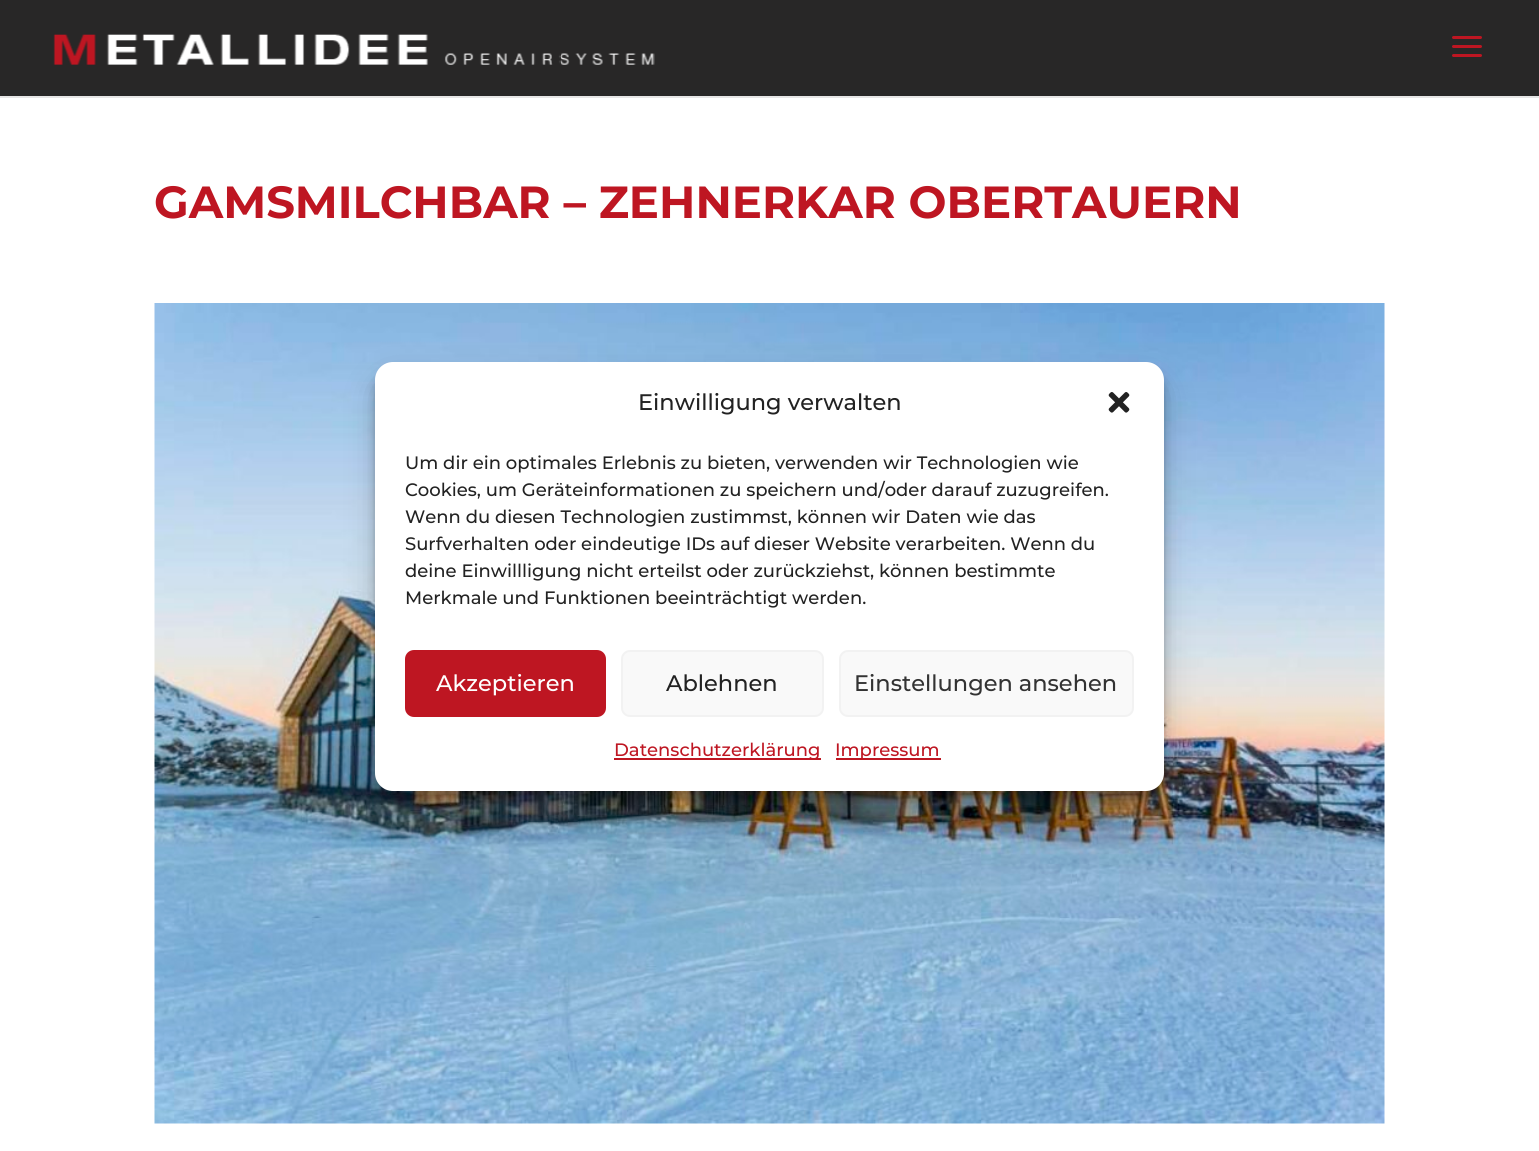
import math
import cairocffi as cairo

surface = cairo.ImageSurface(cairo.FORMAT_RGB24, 1539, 1151)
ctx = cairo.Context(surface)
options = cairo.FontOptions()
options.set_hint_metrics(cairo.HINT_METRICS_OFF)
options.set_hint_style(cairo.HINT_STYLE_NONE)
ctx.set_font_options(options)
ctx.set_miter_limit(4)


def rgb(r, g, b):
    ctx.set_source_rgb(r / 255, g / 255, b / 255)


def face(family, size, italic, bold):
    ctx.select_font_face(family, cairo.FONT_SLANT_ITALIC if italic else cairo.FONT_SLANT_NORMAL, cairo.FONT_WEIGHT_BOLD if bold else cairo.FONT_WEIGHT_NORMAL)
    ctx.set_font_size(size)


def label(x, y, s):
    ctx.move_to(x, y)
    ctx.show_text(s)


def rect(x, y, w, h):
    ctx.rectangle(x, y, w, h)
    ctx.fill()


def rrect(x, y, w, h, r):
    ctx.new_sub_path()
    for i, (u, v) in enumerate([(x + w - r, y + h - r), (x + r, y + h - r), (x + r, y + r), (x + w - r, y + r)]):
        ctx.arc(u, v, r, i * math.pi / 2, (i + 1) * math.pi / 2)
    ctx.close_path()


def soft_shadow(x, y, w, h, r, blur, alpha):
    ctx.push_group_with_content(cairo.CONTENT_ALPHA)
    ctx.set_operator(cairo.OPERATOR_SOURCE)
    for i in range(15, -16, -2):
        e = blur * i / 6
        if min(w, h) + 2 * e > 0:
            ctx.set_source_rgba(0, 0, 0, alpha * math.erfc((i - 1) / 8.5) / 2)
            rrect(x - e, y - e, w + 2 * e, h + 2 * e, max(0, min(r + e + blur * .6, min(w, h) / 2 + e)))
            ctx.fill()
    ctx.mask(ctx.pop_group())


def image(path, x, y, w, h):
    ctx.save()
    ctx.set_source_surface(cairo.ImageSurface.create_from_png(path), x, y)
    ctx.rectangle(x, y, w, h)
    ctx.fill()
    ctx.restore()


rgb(255, 255, 255)
ctx.paint()
rgb(230, 230, 230)
rect(0, 96, 1539, 2)
rgb(40, 39, 39)
rect(0, 0, 1539, 96)
image('image0.png', 53, 34, 602, 31)
image('image1.png', 1452, 36, 30, 21)
face('Montserrat', 45, 0, 1)
rgb(190, 22, 34)
label(154, 218, 'GAMSMILCHBAR – ZEHNERKAR OBERTAUERN')
image('image2.png', 154, 303, 1231, 821)
rgb(0, 0, 0)
soft_shadow(375, 371, 789, 429, 18, 4.5, 0.23)
soft_shadow(375, 377, 789, 429, 18, 15, 0.19)
rgb(255, 255, 255)
rrect(375, 362, 789, 429, 18)
ctx.fill()
face('Montserrat Medium', 22.5, 0, 0)
rgb(34, 34, 34)
label(638, 410, 'Einwilligung verwalten')
image('image3.png', 1108, 392, 22, 21)
face('Montserrat Medium', 18, 0, 0)
label(405, 469, 'Um dir ein optimales Erlebnis zu bieten, verwenden wir Technologien wie')
label(405, 496, 'Cookies, um Geräteinformationen zu speichern und/oder darauf zuzugreifen.')
label(405, 523, 'Wenn du diesen Technologien zustimmst, können wir Daten wie das')
label(405, 550, 'Surfverhalten oder eindeutige IDs auf dieser Website verarbeiten. Wenn du')
label(405, 577, 'deine Einwillligung nicht erteilst oder zurückziehst, können bestimmte')
label(405, 604, 'Merkmale und Funktionen beeinträchtigt werden.')
rgb(190, 22, 34)
rrect(406, 651, 199, 65, 8)
ctx.fill_preserve()
ctx.stroke()
face('Montserrat Medium', 22.5, 0, 0)
rgb(255, 255, 255)
label(436, 691, 'Akzeptieren')
rgb(249, 249, 249)
rrect(622, 651, 201, 65, 8)
ctx.fill_preserve()
rgb(242, 242, 242)
ctx.stroke()
rgb(34, 34, 34)
label(666, 691, 'Ablehnen')
rgb(249, 249, 249)
rrect(840, 651, 293, 65, 8)
ctx.fill_preserve()
rgb(242, 242, 242)
ctx.stroke()
rgb(51, 51, 51)
label(854, 691, 'Einstellungen ansehen')
rgb(190, 22, 34)
rect(614, 758, 207, 2)
face('Montserrat Medium', 18, 0, 0)
label(614, 756, 'Datenschutzerklärung')
rect(836, 758, 105, 2)
label(835, 756, 'Impressum')
surface.write_to_png('render.png')
